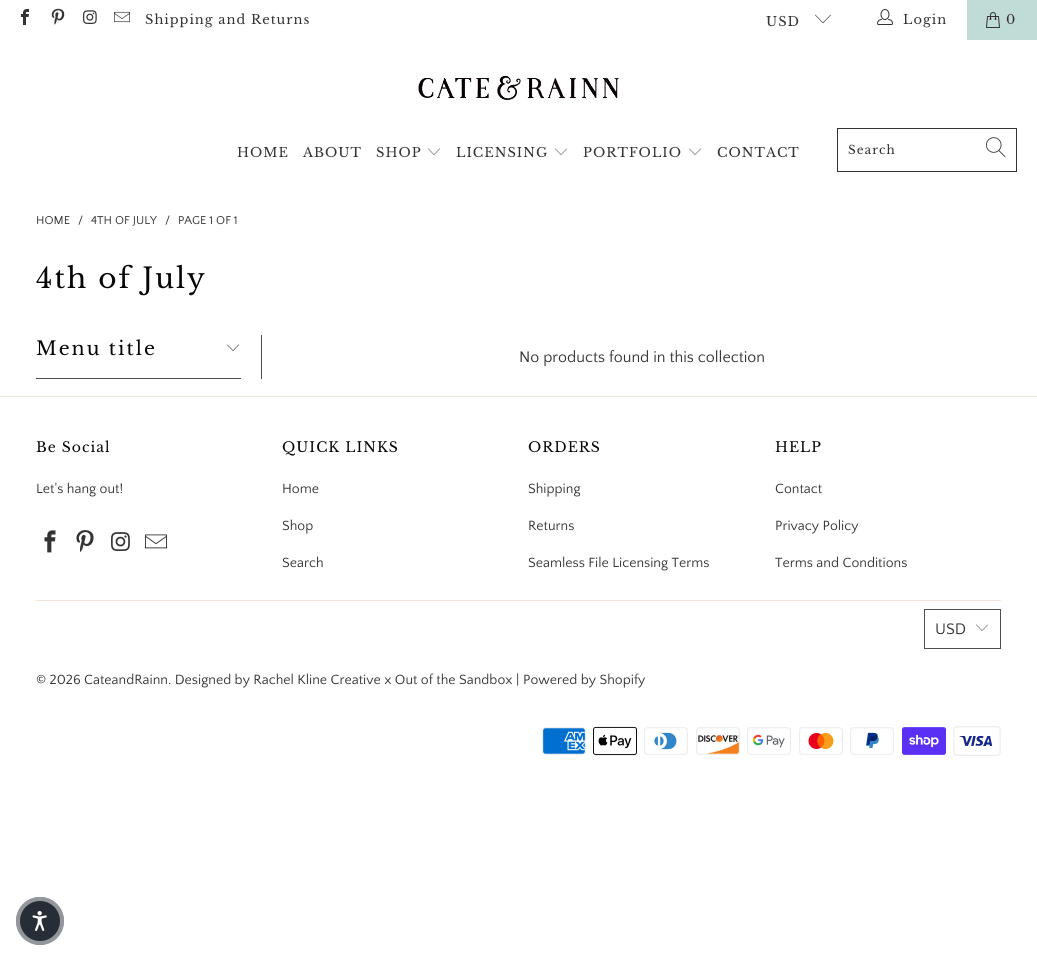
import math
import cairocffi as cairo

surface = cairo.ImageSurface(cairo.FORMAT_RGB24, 1037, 961)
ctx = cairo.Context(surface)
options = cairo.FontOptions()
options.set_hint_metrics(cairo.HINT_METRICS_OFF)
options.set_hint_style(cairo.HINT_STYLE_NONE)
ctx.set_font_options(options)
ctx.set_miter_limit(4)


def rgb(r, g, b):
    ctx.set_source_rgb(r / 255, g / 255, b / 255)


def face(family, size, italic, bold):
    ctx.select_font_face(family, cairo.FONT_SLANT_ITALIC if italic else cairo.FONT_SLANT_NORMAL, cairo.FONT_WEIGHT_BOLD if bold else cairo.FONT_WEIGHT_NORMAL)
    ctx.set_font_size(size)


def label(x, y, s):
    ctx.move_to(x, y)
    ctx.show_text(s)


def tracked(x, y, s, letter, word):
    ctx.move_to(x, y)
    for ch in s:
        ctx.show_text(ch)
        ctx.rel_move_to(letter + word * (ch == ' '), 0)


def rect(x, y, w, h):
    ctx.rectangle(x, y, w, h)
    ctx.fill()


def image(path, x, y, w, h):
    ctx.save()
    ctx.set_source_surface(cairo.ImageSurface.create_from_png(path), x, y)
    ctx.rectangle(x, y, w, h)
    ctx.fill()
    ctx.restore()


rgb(255, 255, 255)
ctx.paint()
image('image0.png', 21, 9, 8, 16)
image('image1.png', 51, 8, 14, 17)
image('image2.png', 83, 10, 14, 14)
image('image3.png', 114, 11, 16, 12)
face('Libre Baskerville', 13, 0, 0)
rgb(51, 51, 51)
tracked(145, 24, 'Shipping and Returns', 1, 0)
tracked(766, 26, 'USD', 1, 0)
image('image4.png', 815, 14, 16, 10)
image('image5.png', 877, 9, 16, 16)
tracked(903, 24, 'Login', 1, 0)
rgb(193, 219, 215)
rect(967, 0, 70, 40)
image('image6.png', 986, 12, 14, 16)
rgb(51, 51, 51)
tracked(1006, 24, '0', 1, 0)
image('image7.png', 418, 75, 201, 25)
tracked(237, 157, 'HOME', 1, 0)
tracked(303, 157, 'ABOUT', 1, 0)
tracked(376, 157, 'SHOP', 1, 0)
image('image8.png', 428, 148, 12, 7)
tracked(456, 157, 'LICENSING', 1, 0)
image('image8.png', 555, 148, 12, 7)
tracked(583, 157, 'PORTFOLIO', 1, 0)
image('image8.png', 689, 148, 12, 7)
tracked(717, 157, 'CONTACT', 1, 0)
ctx.rectangle(837.5, 128.5, 179, 43)
ctx.set_line_width(1)
ctx.stroke()
face('Libre Baskerville', 12, 0, 0)
tracked(848, 154, 'Search', 1, 0)
image('image9.png', 986, 137, 20, 21)
face('Quattrocento Sans', 12, 0, 0)
label(36, 224, 'HOME')
label(78, 224, '/')
label(91, 224, '4TH OF JULY')
label(165, 224, '/')
label(178, 224, 'PAGE 1 OF 1')
face('Libre Baskerville', 28, 0, 0)
rgb(5, 5, 5)
tracked(36, 288, '4th of July', 2, 0)
rgb(76, 80, 79)
rect(261, 335, 1, 44)
face('Libre Baskerville', 19, 0, 0)
rgb(5, 5, 5)
tracked(36, 355, 'Menu title', 2, 0)
image('image10.png', 227, 344, 12, 7)
rgb(76, 80, 79)
rect(36, 378, 205, 1)
face('Quattrocento Sans', 16, 0, 0)
rgb(51, 51, 51)
label(519, 362, 'No products found in this collection')
rgb(245, 226, 218)
rect(0, 396, 1037, 1)
face('Libre Baskerville', 14, 0, 0)
rgb(5, 5, 5)
tracked(36, 452, 'Be Social', 1, 0)
face('Quattrocento Sans', 14, 0, 0)
rgb(51, 51, 51)
label(36, 493, 'Let\'s hang out!')
image('image11.png', 44, 530, 12, 23)
image('image12.png', 76, 530, 18, 22)
image('image13.png', 111, 532, 19, 19)
image('image14.png', 145, 534, 22, 15)
face('Libre Baskerville', 14, 0, 0)
rgb(5, 5, 5)
tracked(282, 452, 'QUICK LINKS', 1, 0)
face('Quattrocento Sans', 14, 0, 0)
rgb(51, 51, 51)
label(282, 493, 'Home')
label(282, 530, 'Shop')
label(282, 567, 'Search')
face('Libre Baskerville', 14, 0, 0)
rgb(5, 5, 5)
tracked(528, 452, 'ORDERS', 1, 0)
face('Quattrocento Sans', 14, 0, 0)
rgb(51, 51, 51)
label(528, 493, 'Shipping')
label(528, 530, 'Returns')
label(528, 567, 'Seamless File Licensing Terms')
face('Libre Baskerville', 14, 0, 0)
rgb(5, 5, 5)
tracked(775, 452, 'HELP', 1, 0)
face('Quattrocento Sans', 14, 0, 0)
rgb(51, 51, 51)
label(775, 493, 'Contact')
label(775, 530, 'Privacy Policy')
label(775, 567, 'Terms and Conditions')
rgb(245, 226, 218)
rect(36, 600, 965, 1)
ctx.rectangle(924.5, 609.5, 76, 39)
rgb(76, 80, 79)
ctx.stroke()
face('Quattrocento Sans', 16, 0, 0)
rgb(51, 51, 51)
label(935, 634, 'USD')
image('image8.png', 976, 624, 12, 7)
face('Quattrocento Sans', 14, 0, 0)
label(36, 684, '© 2026')
label(84, 684, 'CateandRainn')
label(168, 684, '. Designed by Rachel Kline Creative x Out of the Sandbox |')
label(523, 684, 'Powered by Shopify')
image('image15.png', 542, 727, 44, 28)
image('image16.png', 593, 726, 44, 30)
image('image17.png', 644, 727, 44, 28)
image('image18.png', 696, 727, 44, 28)
image('image19.png', 747, 727, 44, 28)
image('image20.png', 799, 727, 44, 28)
image('image21.png', 850, 727, 44, 28)
image('image22.png', 902, 727, 44, 28)
image('image23.png', 953, 726, 48, 30)
rgb(39, 45, 54)
ctx.arc(40, 921, 24, 0, 2 * math.pi)
ctx.fill()
ctx.arc(40, 921, 22, 0, 2 * math.pi)
ctx.set_source_rgba(1, 1, 1, 0.5)
ctx.set_line_width(4)
ctx.stroke()
image('image24.png', 32, 911, 15, 20)
surface.write_to_png('render.png')
